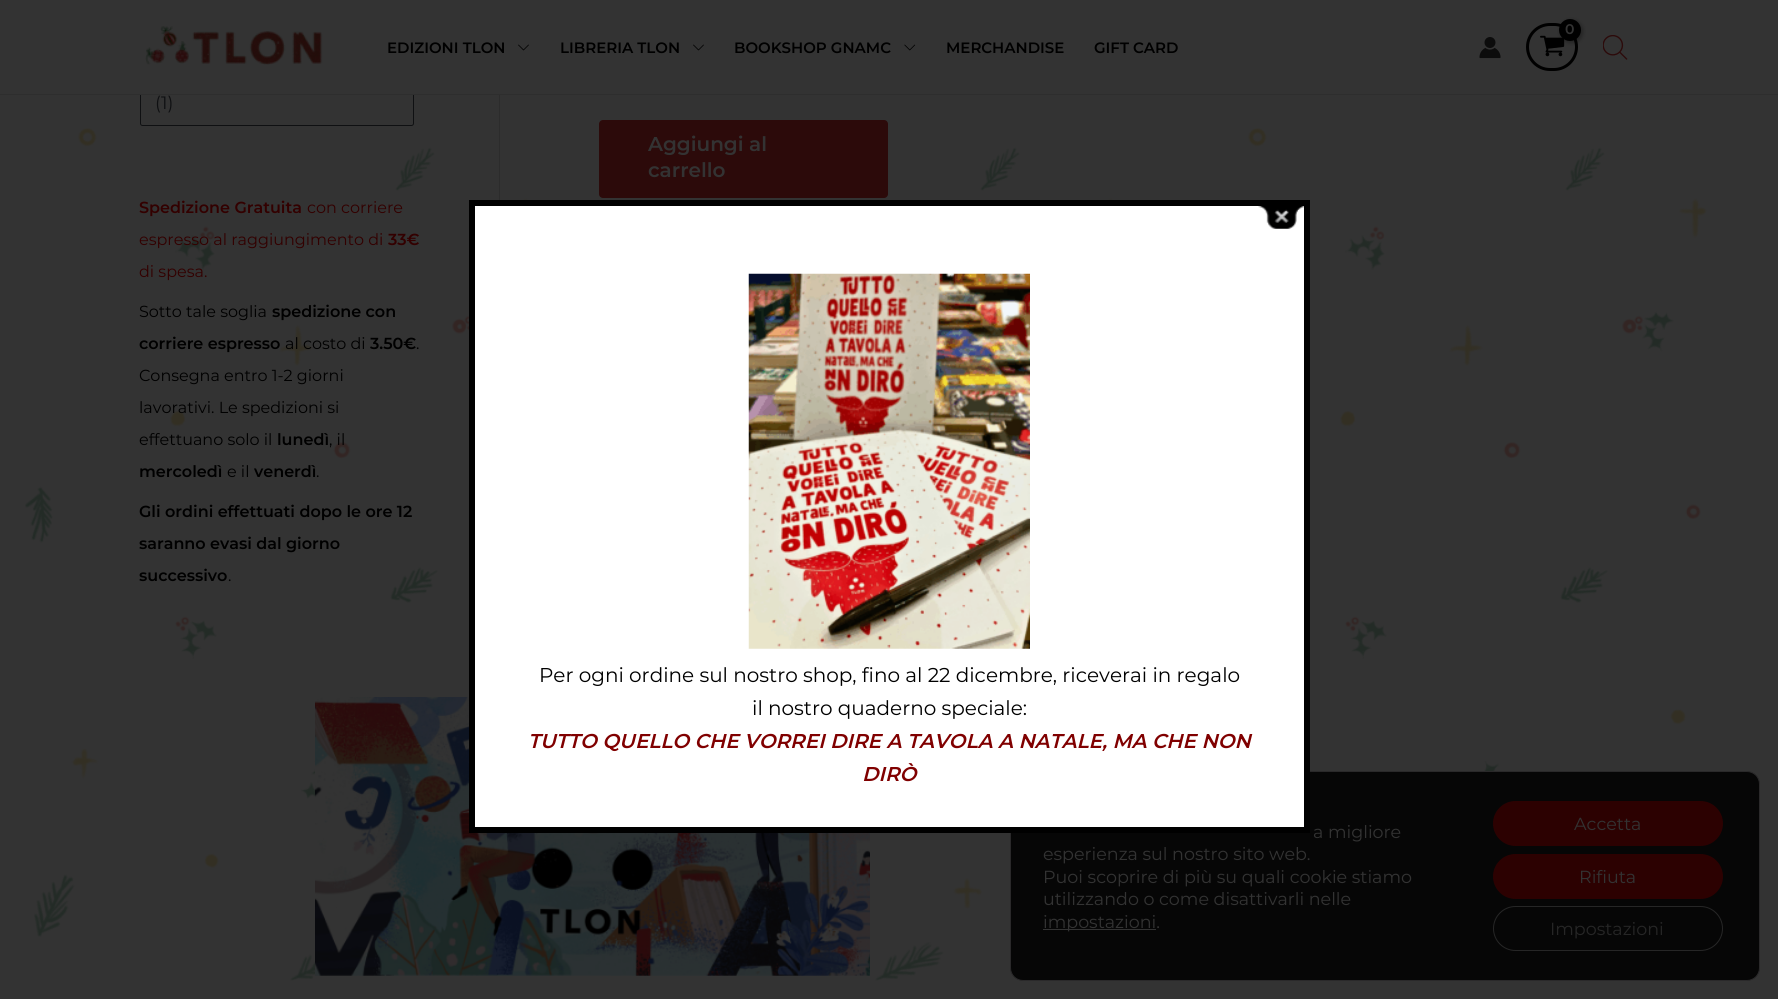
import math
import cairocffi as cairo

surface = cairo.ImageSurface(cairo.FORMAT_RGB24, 1778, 999)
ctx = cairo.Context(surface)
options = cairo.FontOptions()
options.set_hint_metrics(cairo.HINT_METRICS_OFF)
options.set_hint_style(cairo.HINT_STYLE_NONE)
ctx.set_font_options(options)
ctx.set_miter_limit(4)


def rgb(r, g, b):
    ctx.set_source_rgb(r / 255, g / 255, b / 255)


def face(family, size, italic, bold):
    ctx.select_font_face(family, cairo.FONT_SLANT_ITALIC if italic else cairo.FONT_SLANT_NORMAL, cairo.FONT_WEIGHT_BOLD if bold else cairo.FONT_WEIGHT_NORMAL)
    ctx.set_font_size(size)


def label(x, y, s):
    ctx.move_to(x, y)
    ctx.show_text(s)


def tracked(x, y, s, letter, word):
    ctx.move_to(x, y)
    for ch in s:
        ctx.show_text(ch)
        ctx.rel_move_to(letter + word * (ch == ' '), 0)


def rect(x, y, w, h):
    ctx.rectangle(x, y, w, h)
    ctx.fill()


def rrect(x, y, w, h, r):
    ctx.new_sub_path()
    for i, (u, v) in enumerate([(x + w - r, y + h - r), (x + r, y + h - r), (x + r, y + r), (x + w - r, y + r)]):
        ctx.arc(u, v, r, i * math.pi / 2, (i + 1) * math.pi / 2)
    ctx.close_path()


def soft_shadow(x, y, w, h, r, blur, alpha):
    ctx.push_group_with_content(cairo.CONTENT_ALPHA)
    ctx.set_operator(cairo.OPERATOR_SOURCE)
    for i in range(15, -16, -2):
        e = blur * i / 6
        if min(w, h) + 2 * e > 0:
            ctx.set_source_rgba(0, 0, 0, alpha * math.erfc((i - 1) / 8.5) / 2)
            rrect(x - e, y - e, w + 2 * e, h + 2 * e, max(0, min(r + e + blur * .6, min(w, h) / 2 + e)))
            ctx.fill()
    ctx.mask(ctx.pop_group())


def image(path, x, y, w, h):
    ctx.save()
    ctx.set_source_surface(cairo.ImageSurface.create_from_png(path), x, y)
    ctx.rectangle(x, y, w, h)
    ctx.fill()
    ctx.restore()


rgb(51, 51, 51)
ctx.paint()
image('image0.png', 25, 128, 1682, 853)
rrect(140.5, 44.5, 273, 81, 2)
rgb(15, 16, 18)
ctx.set_line_width(1)
ctx.stroke()
rgb(51, 51, 51)
rect(140, 44, 274, 50)
rgb(46, 46, 46)
rect(0, 94, 1778, 1)
rrect(1527.5, 24.5, 49, 45, 22.5)
rgb(0, 0, 0)
ctx.set_line_width(3)
ctx.stroke()
image('image1.png', 1540, 35, 25, 22)
rgb(0, 0, 0)
soft_shadow(1560, 20, 23, 23, 11.5, 2, 0.3)
rgb(0, 0, 0)
ctx.arc(1570, 30, 11, 0, 2 * math.pi)
ctx.fill()
face('Montserrat SemiBold', 14, 0, 0)
rgb(51, 51, 51)
tracked(1565, 34, '0', -1, 0)
image('image2.png', 1479, 37, 22, 22)
image('image3.png', 1603, 35, 25, 25)
image('image4.png', 145, 26, 178, 39)
face('Montserrat SemiBold', 15, 0, 0)
rgb(0, 0, 0)
label(387, 53, 'EDIZIONI TLON')
image('image5.png', 518, 44, 11, 7)
label(560, 53, 'LIBRERIA TLON')
image('image5.png', 693, 44, 11, 7)
label(734, 53, 'BOOKSHOP GNAMC')
image('image6.png', 904, 44, 12, 7)
label(946, 53, 'MERCHANDISE')
label(1094, 53, 'GIFT CARD')
rgb(44, 44, 44)
rect(499, 95, 1, 105)
face('Montserrat', 18, 0, 0)
rgb(15, 16, 18)
label(155, 109, '(1)')
face('Montserrat SemiBold', 16, 0, 0)
rgb(51, 0, 0)
label(139, 213, 'Spedizione Gratuita')
face('Montserrat', 16, 0, 0)
label(307, 213, 'con corriere')
label(139, 245, 'espresso al raggiungimento di')
face('Montserrat SemiBold', 16, 0, 0)
label(388, 245, '33€')
face('Montserrat', 16, 0, 0)
label(139, 277, 'di spesa.')
rgb(0, 0, 0)
label(139, 317, 'Sotto tale soglia')
face('Montserrat SemiBold', 16, 0, 0)
label(272, 317, 'spedizione con')
label(139, 349, 'corriere espresso')
face('Montserrat', 16, 0, 0)
label(285, 349, 'al costo di')
face('Montserrat SemiBold', 16, 0, 0)
label(370, 349, '3.50€')
face('Montserrat', 16, 0, 0)
label(416, 349, '.')
label(139, 381, 'Consegna entro 1-2 giorni')
label(139, 413, 'lavorativi. Le spedizioni si')
label(139, 445, 'effettuano solo il')
face('Montserrat SemiBold', 16, 0, 0)
label(277, 445, 'lunedì')
face('Montserrat', 16, 0, 0)
label(329, 445, ', il')
face('Montserrat SemiBold', 16, 0, 0)
label(139, 477, 'mercoledì')
face('Montserrat', 16, 0, 0)
label(227, 477, 'e il')
face('Montserrat SemiBold', 16, 0, 0)
label(254, 477, 'venerdì')
face('Montserrat', 16, 0, 0)
label(316, 477, '.')
face('Montserrat SemiBold', 16, 0, 0)
label(139, 517, 'Gli ordini effettuati dopo le ore 12')
label(139, 549, 'saranno evasi dal giorno')
label(139, 581, 'successivo')
face('Montserrat', 16, 0, 0)
label(228, 581, '.')
rgb(44, 10, 10)
rrect(599, 120, 289, 78, 4)
ctx.fill()
face('Montserrat SemiBold', 20, 0, 0)
rgb(51, 51, 51)
label(648, 151, 'Aggiungi al')
label(648, 177, 'carrello')
image('image7.png', 315, 697, 555, 279)
rgb(6, 6, 6)
rrect(1010.5, 771.5, 749, 209, 12.5)
ctx.fill_preserve()
rgb(42, 41, 42)
ctx.set_line_width(1)
ctx.stroke()
rgb(255, 255, 255)
ctx.rectangle(472, 203, 835, 627)
ctx.fill_preserve()
rgb(0, 0, 0)
ctx.set_line_width(6)
ctx.stroke()
image('image8.png', 1258, 206, 46, 23)
image('image9.png', 748, 273, 282, 376)
face('Montserrat', 20, 0, 0)
label(539, 682, 'Per ogni ordine sul nostro shop, fino al 22 dicembre, riceverai in regalo')
label(752, 715, 'il nostro quaderno speciale:')
face('Montserrat SemiBold', 20, 1, 0)
rgb(128, 0, 0)
label(528, 748, 'TUTTO QUELLO CHE VORREI DIRE A TAVOLA A NATALE, MA CHE NON')
label(862, 781, 'DIRÒ')
face('Montserrat', 17.5, 0, 0)
rgb(51, 51, 51)
label(1313, 838, 'a migliore')
label(1043, 860, 'esperienza sul nostro sito web.')
label(1043, 883, 'Puoi scoprire di più su quali cookie stiamo')
label(1043, 905, 'utilizzando o come disattivarli nelle')
rect(1043, 929, 113, 1)
label(1043, 928, 'impostazioni.')
rgb(44, 1, 1)
rrect(1493, 801, 230, 45, 22.5)
ctx.fill()
rgb(51, 51, 51)
label(1574, 830, 'Accetta')
rgb(44, 1, 1)
rrect(1493, 854, 230, 45, 22.5)
ctx.fill()
rgb(51, 51, 51)
label(1579, 883, 'Rifiuta')
rrect(1493.5, 906.5, 229, 44, 22)
rgb(38, 38, 38)
ctx.set_line_width(1)
ctx.stroke()
label(1550, 935, 'Impostazioni')
surface.write_to_png('render.png')
